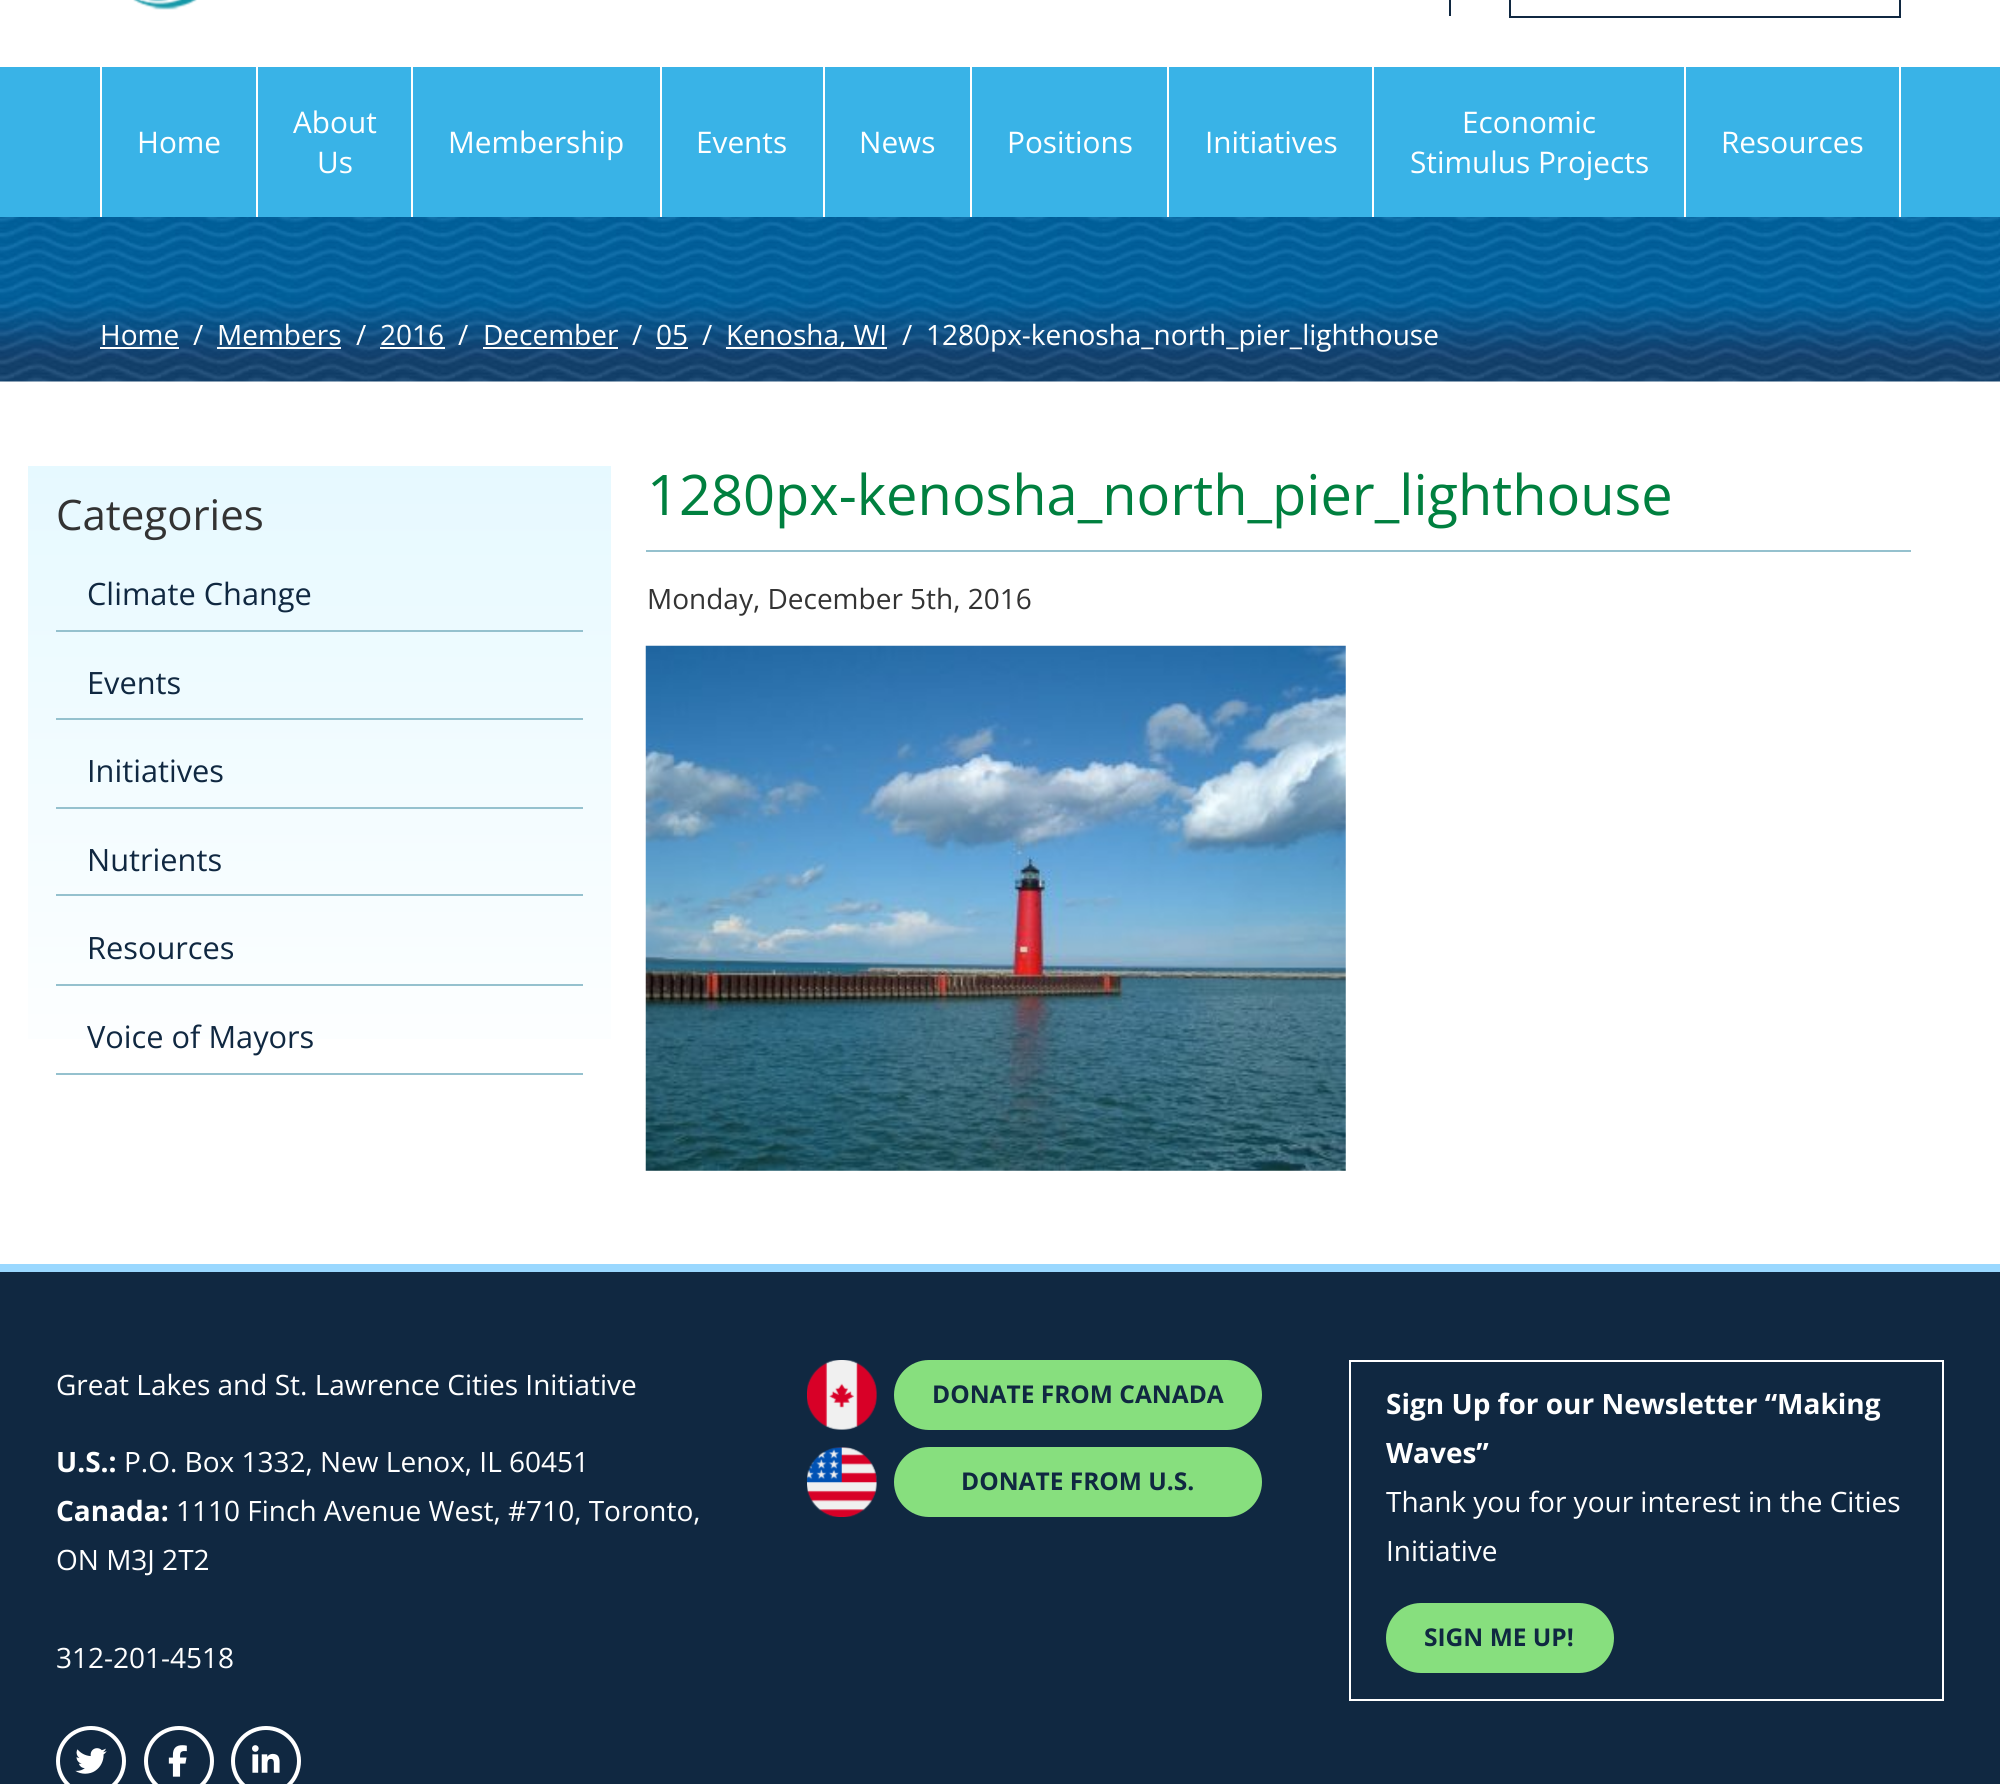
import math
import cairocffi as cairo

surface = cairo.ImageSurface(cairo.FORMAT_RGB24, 2000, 1784)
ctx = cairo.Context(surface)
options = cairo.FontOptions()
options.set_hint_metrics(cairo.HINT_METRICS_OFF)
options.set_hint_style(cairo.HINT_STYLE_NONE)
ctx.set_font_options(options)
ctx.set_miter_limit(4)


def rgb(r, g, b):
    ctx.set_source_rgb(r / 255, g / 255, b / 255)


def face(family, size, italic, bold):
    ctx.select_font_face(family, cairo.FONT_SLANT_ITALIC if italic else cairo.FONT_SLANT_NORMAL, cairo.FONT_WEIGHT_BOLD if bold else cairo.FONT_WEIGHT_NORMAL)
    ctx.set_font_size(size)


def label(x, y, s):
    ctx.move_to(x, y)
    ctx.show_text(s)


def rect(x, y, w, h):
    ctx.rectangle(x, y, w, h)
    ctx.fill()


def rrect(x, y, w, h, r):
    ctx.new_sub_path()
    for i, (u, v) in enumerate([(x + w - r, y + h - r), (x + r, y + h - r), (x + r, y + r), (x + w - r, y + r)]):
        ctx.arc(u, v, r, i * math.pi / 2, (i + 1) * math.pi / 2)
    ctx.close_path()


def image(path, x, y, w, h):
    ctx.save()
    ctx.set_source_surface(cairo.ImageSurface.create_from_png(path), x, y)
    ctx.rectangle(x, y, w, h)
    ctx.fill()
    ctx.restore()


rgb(255, 255, 255)
ctx.paint()
image('image0.png', 133, 0, 64, 10)
rgb(16, 40, 65)
rect(1449, 0, 2, 16)
ctx.rectangle(1510, -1, 390, 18)
ctx.stroke()
rgb(57, 179, 231)
rect(0, 67, 2000, 150)
rgb(255, 255, 255)
rect(256, 67, 2, 150)
rect(100, 67, 2, 150)
face('Open Sans', 29.75, 0, 0)
label(137, 153, 'Home')
rect(411, 67, 2, 150)
label(293, 133, 'About')
label(317, 173, 'Us')
rect(660, 67, 2, 150)
label(448, 153, 'Membership')
rect(823, 67, 2, 150)
label(696, 153, 'Events')
rect(970, 67, 2, 150)
label(859, 153, 'News')
rect(1167, 67, 2, 150)
label(1007, 153, 'Positions')
rect(1372, 67, 2, 150)
label(1205, 153, 'Initiatives')
rect(1684, 67, 2, 150)
label(1462, 133, 'Economic')
label(1410, 173, 'Stimulus Projects')
rect(1899, 67, 2, 150)
label(1721, 153, 'Resources')
image('image1.png', 0, 217, 2000, 165)
face('Open Sans', 28, 0, 0)
label(100, 345, 'Home')
rect(100, 347, 79, 2)
label(193, 345, '/')
label(217, 345, 'Members')
rect(217, 347, 124, 2)
label(356, 345, '/')
label(380, 345, '2016')
rect(380, 347, 65, 2)
label(458, 345, '/')
label(483, 345, 'December')
rect(483, 347, 135, 2)
label(632, 345, '/')
label(656, 345, '05')
rect(656, 347, 32, 2)
label(702, 345, '/')
rect(726, 347, 161, 2)
label(726, 345, 'Kenosha, WI')
label(902, 345, '/')
label(926, 345, '1280px-kenosha_north_pier_lighthouse')
gradient = cairo.LinearGradient(319, 466, 319, 1103)
gradient.add_color_stop_rgba(0, 0.902, 0.976, 1, 1)
gradient.add_color_stop_rgba(1, 1, 1, 1, 1)
ctx.set_source(gradient)
rect(28, 466, 583, 573)
face('Open Sans', 42, 0, 0)
rgb(51, 51, 51)
label(56, 530, 'Categories')
rgb(149, 193, 206)
rect(56, 630, 527, 2)
face('Open Sans', 30.75, 0, 0)
rgb(16, 40, 65)
label(87, 605, 'Climate Change')
rgb(149, 193, 206)
rect(56, 718, 527, 2)
rgb(16, 40, 65)
label(87, 694, 'Events')
rgb(149, 193, 206)
rect(56, 807, 527, 2)
rgb(16, 40, 65)
label(87, 782, 'Initiatives')
rgb(149, 193, 206)
rect(56, 894, 527, 2)
rgb(16, 40, 65)
label(87, 871, 'Nutrients')
rgb(149, 193, 206)
rect(56, 984, 527, 2)
rgb(16, 40, 65)
label(87, 959, 'Resources')
rgb(149, 193, 206)
rect(56, 1073, 527, 2)
rgb(16, 40, 65)
label(87, 1048, 'Voice of Mayors')
rgb(149, 193, 206)
rect(646, 550, 1265, 2)
face('Open Sans', 56, 0, 0)
rgb(0, 128, 63)
label(647, 515, '1280px-kenosha_north_pier_lighthouse')
face('Open Sans', 28, 0, 0)
rgb(51, 51, 51)
label(647, 609, 'Monday, December 5th, 2016')
image('image2.png', 645, 645, 701, 526)
rgb(16, 40, 65)
rect(0, 1272, 2000, 512)
rgb(154, 216, 255)
rect(0, 1264, 2000, 8)
rgb(255, 255, 255)
label(56, 1395, 'Great Lakes and St. Lawrence Cities Initiative')
face('Open Sans', 28, 0, 1)
label(56, 1472, 'U.S.:')
face('Open Sans', 28, 0, 0)
label(124, 1472, 'P.O. Box 1332, New Lenox, IL 60451')
face('Open Sans', 28, 0, 1)
label(56, 1521, 'Canada:')
face('Open Sans', 28, 0, 0)
label(176, 1521, '1110 Finch Avenue West, #710, Toronto,')
label(56, 1570, 'ON M3J 2T2')
label(56, 1668, '312-201-4518')
ctx.new_path()
ctx.arc(91, 1761, 33, 0, 2 * math.pi)
ctx.set_line_width(4)
ctx.stroke()
image('image3.png', 75, 1748, 32, 26)
ctx.arc(179, 1761, 33, 0, 2 * math.pi)
ctx.stroke()
image('image4.png', 168, 1745, 19, 32)
ctx.arc(266, 1761, 33, 0, 2 * math.pi)
ctx.stroke()
image('image5.png', 252, 1745, 28, 28)
image('image6.png', 807, 1360, 70, 70)
rgb(135, 223, 126)
rrect(896, 1362, 364, 66, 33)
ctx.fill_preserve()
ctx.stroke()
face('Open Sans', 24.5, 0, 1)
rgb(16, 40, 65)
label(932, 1403, 'DONATE FROM CANADA')
image('image7.png', 807, 1447, 70, 70)
rgb(135, 223, 126)
rrect(896, 1449, 364, 66, 33)
ctx.fill_preserve()
ctx.stroke()
rgb(16, 40, 65)
label(961, 1490, 'DONATE FROM U.S.')
ctx.rectangle(1350, 1361, 593, 339)
rgb(255, 255, 255)
ctx.set_line_width(2)
ctx.stroke()
face('Open Sans', 28, 0, 1)
label(1386, 1414, 'Sign Up for our Newsletter “Making')
label(1386, 1463, 'Waves”')
face('Open Sans', 28, 0, 0)
label(1386, 1512, 'Thank you for your interest in the Cities')
label(1386, 1561, 'Initiative')
rgb(135, 223, 126)
rrect(1388, 1605, 224, 66, 33)
ctx.fill_preserve()
ctx.set_line_width(4)
ctx.stroke()
face('Open Sans', 24.5, 0, 1)
rgb(16, 40, 65)
label(1424, 1646, 'SIGN ME UP!')
surface.write_to_png('render.png')
